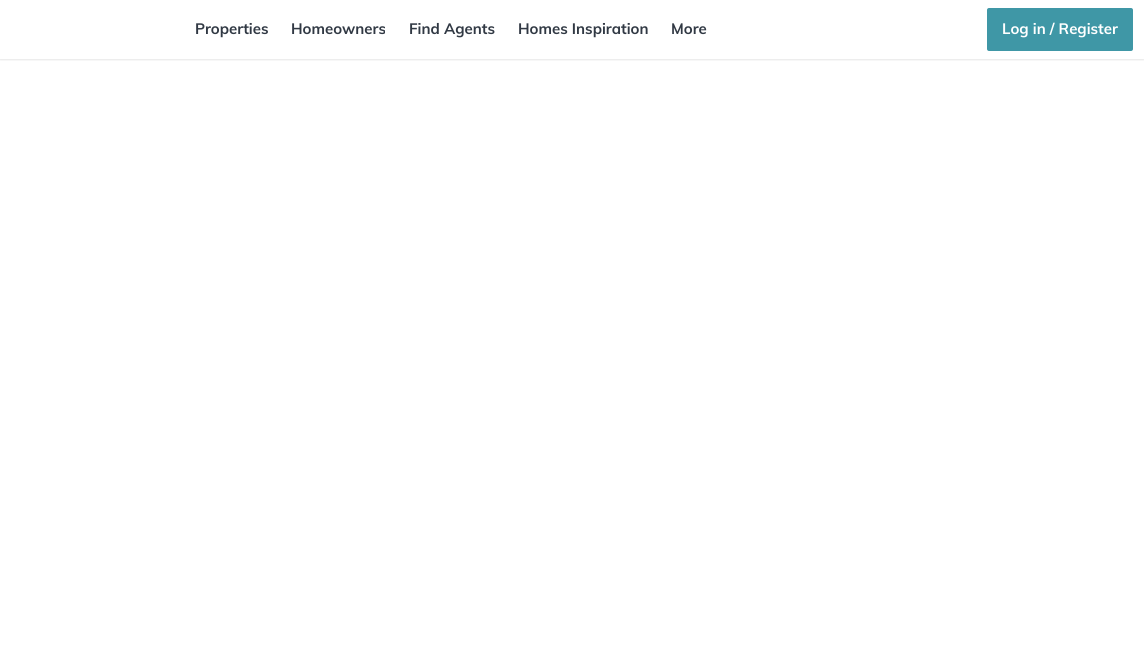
import math
import cairocffi as cairo

surface = cairo.ImageSurface(cairo.FORMAT_RGB24, 1144, 648)
ctx = cairo.Context(surface)
options = cairo.FontOptions()
options.set_hint_metrics(cairo.HINT_METRICS_OFF)
options.set_hint_style(cairo.HINT_STYLE_NONE)
ctx.set_font_options(options)
ctx.set_miter_limit(4)


def rgb(r, g, b):
    ctx.set_source_rgb(r / 255, g / 255, b / 255)


def face(family, size, italic, bold):
    ctx.select_font_face(family, cairo.FONT_SLANT_ITALIC if italic else cairo.FONT_SLANT_NORMAL, cairo.FONT_WEIGHT_BOLD if bold else cairo.FONT_WEIGHT_NORMAL)
    ctx.set_font_size(size)


def label(x, y, s):
    ctx.move_to(x, y)
    ctx.show_text(s)


def rrect(x, y, w, h, r):
    ctx.new_sub_path()
    for i, (u, v) in enumerate([(x + w - r, y + h - r), (x + r, y + h - r), (x + r, y + r), (x + w - r, y + r)]):
        ctx.arc(u, v, r, i * math.pi / 2, (i + 1) * math.pi / 2)
    ctx.close_path()


def soft_shadow(x, y, w, h, r, blur, alpha):
    ctx.push_group_with_content(cairo.CONTENT_ALPHA)
    ctx.set_operator(cairo.OPERATOR_SOURCE)
    for i in range(15, -16, -2):
        e = blur * i / 6
        if min(w, h) + 2 * e > 0:
            ctx.set_source_rgba(0, 0, 0, alpha * math.erfc((i - 1) / 8.5) / 2)
            rrect(x - e, y - e, w + 2 * e, h + 2 * e, max(0, min(r + e + blur * .6, min(w, h) / 2 + e)))
            ctx.fill()
    ctx.mask(ctx.pop_group())


rgb(255, 255, 255)
ctx.paint()
ctx.save()
ctx.rectangle(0, 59, 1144, 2)
ctx.clip()
rgb(0, 0, 0)
soft_shadow(0, 1, 1144, 59, 0, 1, 0.1)
ctx.restore()
face('Muli', 15, 0, 1)
rgb(49, 57, 68)
label(195, 34, 'Properties')
label(291, 34, 'Homeowners')
label(409, 34, 'Find Agents')
label(518, 34, 'Homes Inspiration')
label(671, 34, 'More')
rgb(63, 151, 166)
rrect(987, 8, 146, 43, 2)
ctx.fill()
rgb(255, 255, 255)
label(1002, 34, 'Log in / Register')
surface.write_to_png('render.png')
